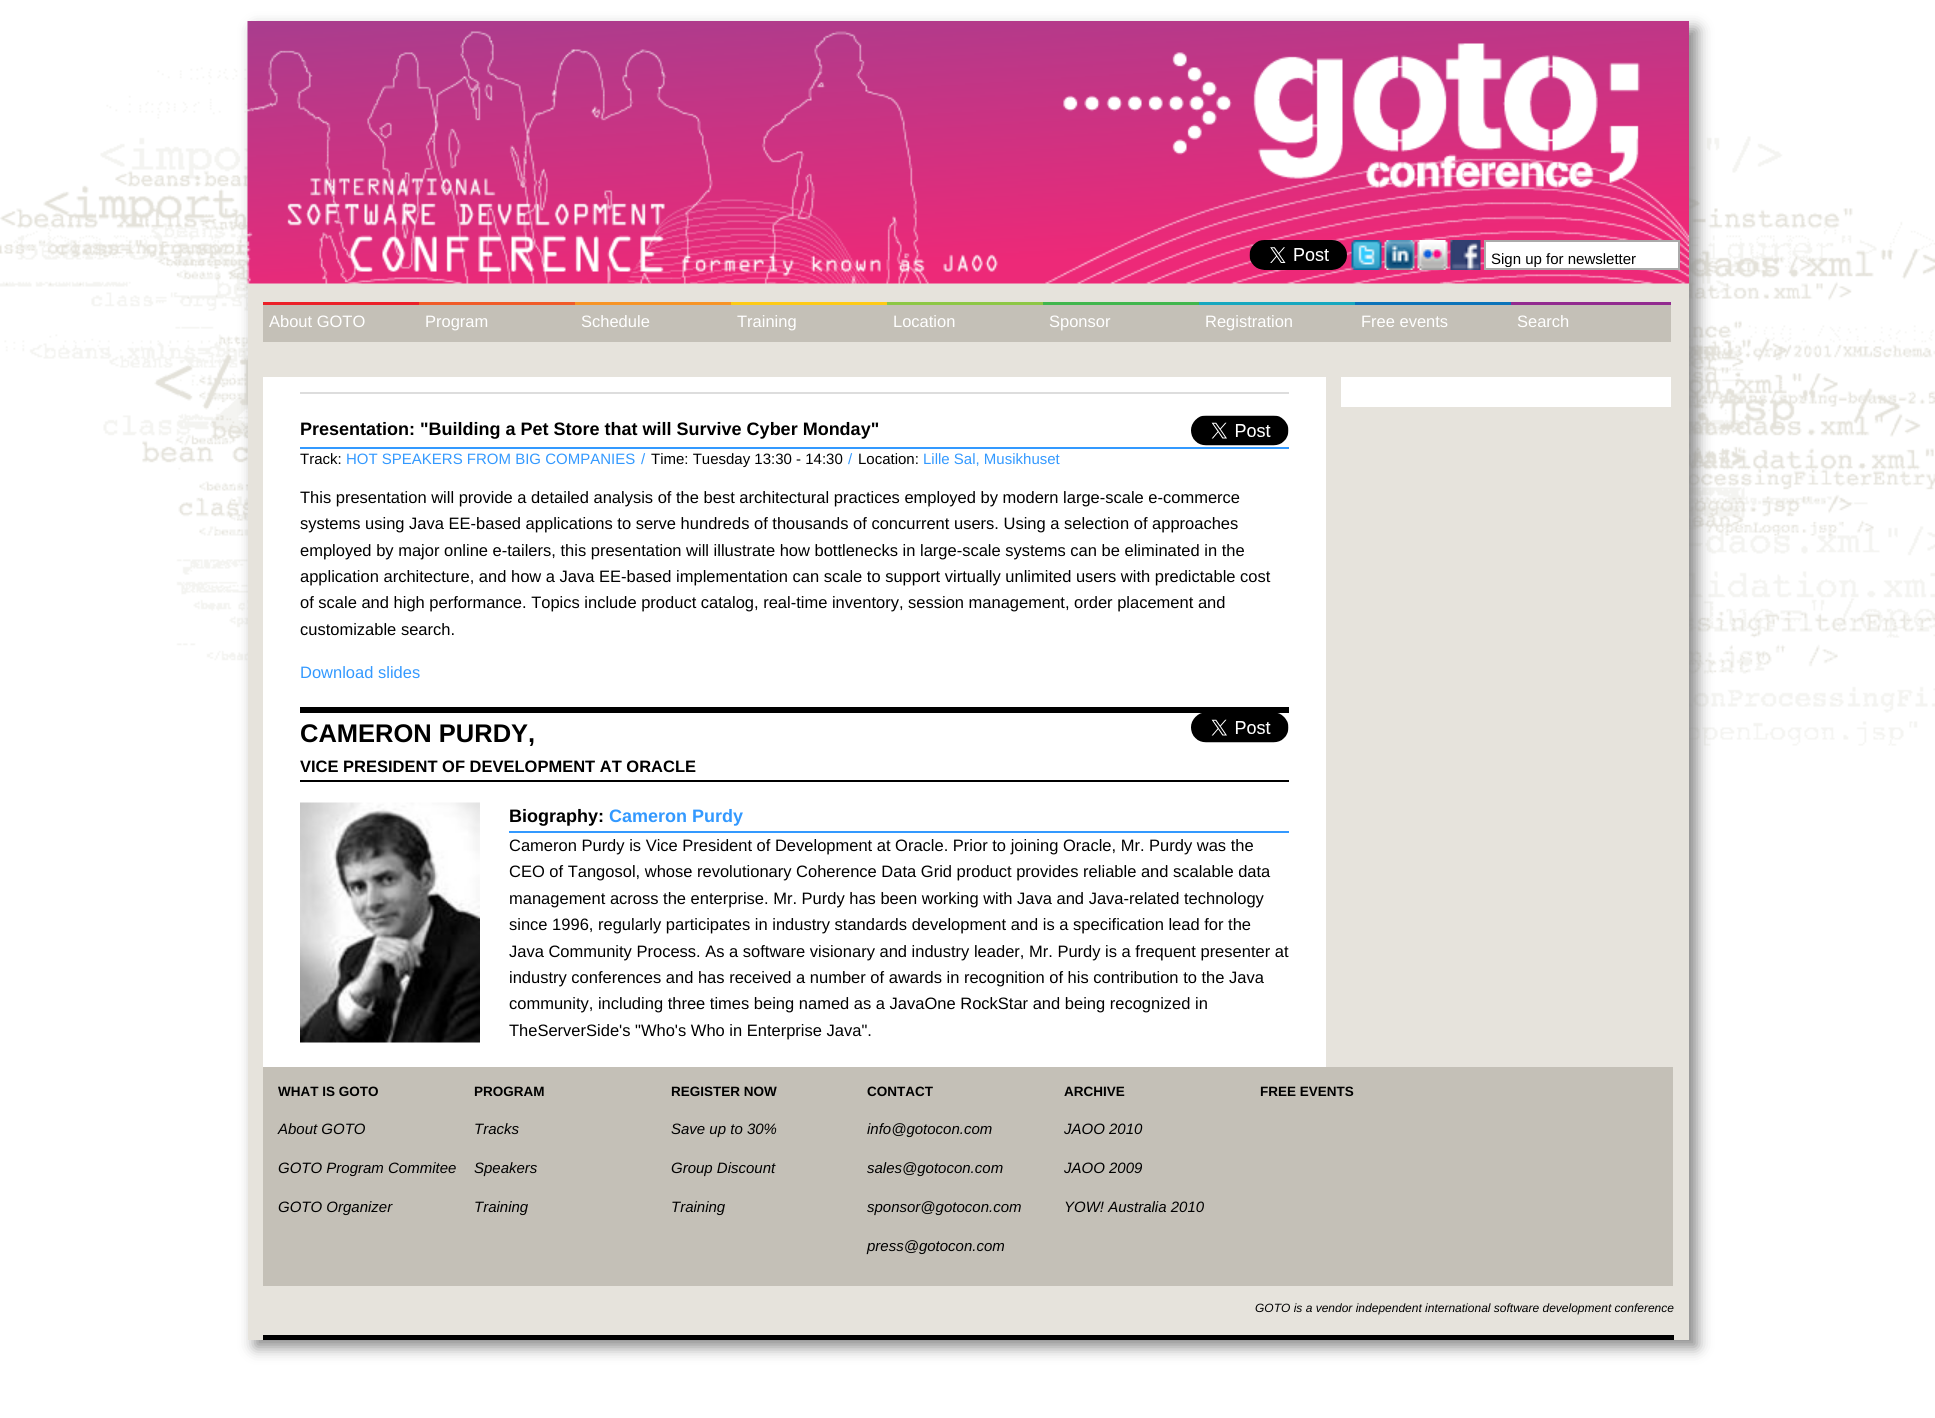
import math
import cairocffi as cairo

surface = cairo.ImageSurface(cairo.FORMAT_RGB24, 1935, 1418)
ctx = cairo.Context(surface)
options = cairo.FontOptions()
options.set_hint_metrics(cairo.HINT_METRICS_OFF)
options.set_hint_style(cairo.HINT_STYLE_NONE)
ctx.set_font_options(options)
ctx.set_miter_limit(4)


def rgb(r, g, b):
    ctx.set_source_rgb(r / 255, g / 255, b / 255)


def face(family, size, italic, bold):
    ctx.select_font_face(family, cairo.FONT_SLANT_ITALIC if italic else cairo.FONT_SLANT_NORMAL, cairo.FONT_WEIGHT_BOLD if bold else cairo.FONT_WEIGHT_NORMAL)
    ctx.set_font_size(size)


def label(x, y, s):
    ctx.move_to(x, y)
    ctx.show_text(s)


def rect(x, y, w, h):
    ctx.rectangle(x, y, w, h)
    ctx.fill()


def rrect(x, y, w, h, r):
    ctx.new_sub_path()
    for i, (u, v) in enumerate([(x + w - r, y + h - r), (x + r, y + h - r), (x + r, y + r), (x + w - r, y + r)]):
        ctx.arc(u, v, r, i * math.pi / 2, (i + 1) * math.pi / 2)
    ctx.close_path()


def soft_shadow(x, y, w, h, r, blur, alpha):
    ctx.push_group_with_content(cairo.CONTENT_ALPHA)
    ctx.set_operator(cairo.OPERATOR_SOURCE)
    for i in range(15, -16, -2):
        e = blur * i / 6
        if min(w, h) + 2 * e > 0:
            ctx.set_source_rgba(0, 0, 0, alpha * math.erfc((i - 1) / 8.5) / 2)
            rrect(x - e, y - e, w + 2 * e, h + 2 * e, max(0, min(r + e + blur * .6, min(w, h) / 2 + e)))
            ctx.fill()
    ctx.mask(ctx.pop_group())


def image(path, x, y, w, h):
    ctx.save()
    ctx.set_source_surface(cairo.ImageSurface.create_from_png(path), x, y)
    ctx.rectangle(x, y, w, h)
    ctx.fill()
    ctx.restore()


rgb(255, 255, 255)
ctx.paint()
image('image0.png', 0, 67, 1935, 679)
rgb(136, 136, 136)
soft_shadow(255, 29, 1442, 1318, 0, 7.5, 1)
rgb(230, 227, 220)
rect(248, 283, 1441, 1057)
image('image1.png', 247, 21, 1442, 263)
image('image2.png', 1249, 240, 98, 30)
image('image3.png', 1351, 240, 31, 30)
image('image4.png', 1384, 240, 31, 30)
image('image5.png', 1417, 240, 31, 30)
image('image6.png', 1450, 240, 31, 30)
rgb(255, 255, 255)
ctx.rectangle(1485, 241, 194, 28)
ctx.fill_preserve()
rgb(170, 170, 170)
ctx.stroke()
ctx.save()
ctx.rectangle(1491, 251, 188, 16)
ctx.clip()
face('Liberation Sans', 15, 0, 0)
rgb(0, 0, 0)
label(1491, 264, 'Sign up for newsletter')
ctx.restore()
rgb(196, 192, 183)
rect(263, 305, 1408, 37)
rgb(235, 32, 40)
rect(263, 302, 156, 3)
face('Liberation Sans', 16.5, 0, 0)
rgb(255, 255, 255)
label(269, 327, 'About GOTO')
rgb(240, 91, 40)
rect(419, 302, 156, 3)
rgb(255, 255, 255)
label(425, 327, 'Program')
rgb(247, 148, 38)
rect(575, 302, 156, 3)
rgb(255, 255, 255)
label(581, 327, 'Schedule')
rgb(254, 202, 22)
rect(731, 302, 156, 3)
rgb(255, 255, 255)
label(737, 327, 'Training')
rgb(141, 199, 69)
rect(887, 302, 156, 3)
rgb(255, 255, 255)
label(893, 327, 'Location')
rgb(64, 182, 77)
rect(1043, 302, 156, 3)
rgb(255, 255, 255)
label(1049, 327, 'Sponsor')
rgb(22, 167, 191)
rect(1199, 302, 156, 3)
rgb(255, 255, 255)
label(1205, 327, 'Registration')
rgb(11, 115, 185)
rect(1355, 302, 156, 3)
rgb(255, 255, 255)
label(1361, 327, 'Free events')
rgb(146, 42, 143)
rect(1511, 302, 160, 3)
rgb(255, 255, 255)
label(1517, 327, 'Search')
rect(1341, 377, 330, 30)
rect(263, 377, 1063, 690)
rgb(221, 221, 221)
rect(300, 392, 989, 2)
rgb(51, 153, 255)
rect(300, 447, 989, 2)
face('Liberation Sans', 18, 0, 1)
rgb(0, 0, 0)
label(300, 435, 'Presentation: "Building a Pet Store that will Survive Cyber Monday"')
image('image7.png', 1191, 415, 98, 31)
face('Liberation Sans', 15, 0, 0)
label(300, 464, 'Track:')
rgb(51, 153, 255)
label(346, 464, 'HOT SPEAKERS FROM BIG COMPANIES')
label(641, 464, '/')
rgb(0, 0, 0)
label(651, 464, 'Time: Tuesday 13:30 - 14:30')
rgb(51, 153, 255)
label(848, 464, '/')
rgb(0, 0, 0)
label(858, 464, 'Location:')
rgb(51, 153, 255)
label(923, 464, 'Lille Sal, Musikhuset')
face('Liberation Sans', 16.5, 0, 0)
rgb(0, 0, 0)
label(300, 503, 'This presentation will provide a detailed analysis of the best architectural practices employed by modern large-scale e-commerce')
label(300, 529, 'systems using Java EE-based applications to serve hundreds of thousands of concurrent users. Using a selection of approaches')
label(300, 556, 'employed by major online e-tailers, this presentation will illustrate how bottlenecks in large-scale systems can be eliminated in the')
label(300, 582, 'application architecture, and how a Java EE-based implementation can scale to support virtually unlimited users with predictable cost')
label(300, 608, 'of scale and high performance. Topics include product catalog, real-time inventory, session management, order placement and')
label(300, 635, 'customizable search.')
rgb(51, 153, 255)
label(300, 678, 'Download slides')
rgb(0, 0, 0)
rect(300, 707, 989, 6)
rect(300, 780, 989, 2)
face('Liberation Sans', 25.5, 0, 1)
label(300, 742, 'CAMERON PURDY,')
image('image8.png', 1191, 713, 98, 30)
face('Liberation Sans', 16.5, 0, 1)
label(300, 772, 'VICE PRESIDENT OF DEVELOPMENT AT ORACLE')
image('image9.png', 300, 802, 180, 241)
rgb(51, 153, 255)
rect(509, 831, 780, 2)
face('Liberation Sans', 18, 0, 1)
rgb(0, 0, 0)
label(509, 822, 'Biography:')
rgb(51, 153, 255)
label(609, 822, 'Cameron Purdy')
face('Liberation Sans', 16.5, 0, 0)
rgb(0, 0, 0)
label(509, 851, 'Cameron Purdy is Vice President of Development at Oracle. Prior to joining Oracle, Mr. Purdy was the')
label(509, 877, 'CEO of Tangosol, whose revolutionary Coherence Data Grid product provides reliable and scalable data')
label(509, 904, 'management across the enterprise. Mr. Purdy has been working with Java and Java-related technology')
label(509, 930, 'since 1996, regularly participates in industry standards development and is a specification lead for the')
label(509, 957, 'Java Community Process. As a software visionary and industry leader, Mr. Purdy is a frequent presenter at')
label(509, 983, 'industry conferences and has received a number of awards in recognition of his contribution to the Java')
label(509, 1009, 'community, including three times being named as a JavaOne RockStar and being recognized in')
label(509, 1036, 'TheServerSide\'s "Who\'s Who in Enterprise Java".')
rect(263, 1335, 1411, 5)
rgb(196, 192, 183)
rect(263, 1067, 1410, 219)
face('Liberation Sans', 13.5, 0, 1)
rgb(0, 0, 0)
label(278, 1096, 'WHAT IS GOTO')
face('Liberation Sans', 15, 1, 0)
label(278, 1134, 'About GOTO')
label(278, 1173, 'GOTO Program Commitee')
label(278, 1212, 'GOTO Organizer')
face('Liberation Sans', 13.5, 0, 1)
label(474, 1096, 'PROGRAM')
face('Liberation Sans', 15, 1, 0)
label(474, 1134, 'Tracks')
label(474, 1173, 'Speakers')
label(474, 1212, 'Training')
face('Liberation Sans', 13.5, 0, 1)
label(671, 1096, 'REGISTER NOW')
face('Liberation Sans', 15, 1, 0)
label(671, 1134, 'Save up to 30%')
label(671, 1173, 'Group Discount')
label(671, 1212, 'Training')
face('Liberation Sans', 13.5, 0, 1)
label(867, 1096, 'CONTACT')
face('Liberation Sans', 15, 1, 0)
label(867, 1134, 'info@gotocon.com')
label(867, 1173, 'sales@gotocon.com')
label(867, 1212, 'sponsor@gotocon.com')
label(867, 1251, 'press@gotocon.com')
face('Liberation Sans', 13.5, 0, 1)
label(1064, 1096, 'ARCHIVE')
face('Liberation Sans', 15, 1, 0)
label(1064, 1134, 'JAOO 2010')
label(1064, 1173, 'JAOO 2009')
label(1064, 1212, 'YOW! Australia 2010')
face('Liberation Sans', 13.5, 0, 1)
label(1260, 1096, 'FREE EVENTS')
face('Liberation Sans', 12, 1, 0)
label(1255, 1312, 'GOTO is a vendor independent international software development conference')
surface.write_to_png('render.png')
